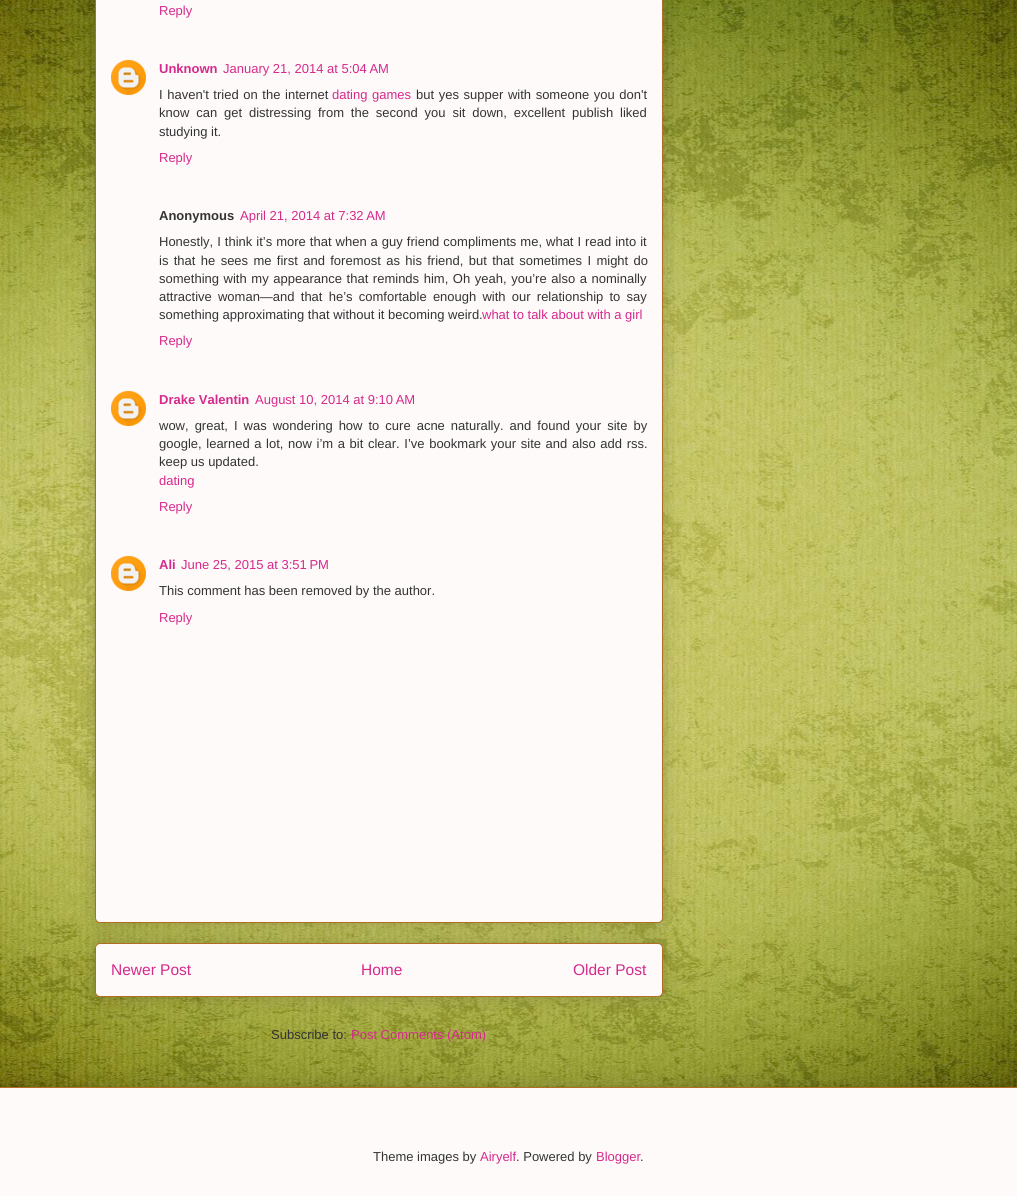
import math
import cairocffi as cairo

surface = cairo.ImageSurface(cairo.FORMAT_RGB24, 1017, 1196)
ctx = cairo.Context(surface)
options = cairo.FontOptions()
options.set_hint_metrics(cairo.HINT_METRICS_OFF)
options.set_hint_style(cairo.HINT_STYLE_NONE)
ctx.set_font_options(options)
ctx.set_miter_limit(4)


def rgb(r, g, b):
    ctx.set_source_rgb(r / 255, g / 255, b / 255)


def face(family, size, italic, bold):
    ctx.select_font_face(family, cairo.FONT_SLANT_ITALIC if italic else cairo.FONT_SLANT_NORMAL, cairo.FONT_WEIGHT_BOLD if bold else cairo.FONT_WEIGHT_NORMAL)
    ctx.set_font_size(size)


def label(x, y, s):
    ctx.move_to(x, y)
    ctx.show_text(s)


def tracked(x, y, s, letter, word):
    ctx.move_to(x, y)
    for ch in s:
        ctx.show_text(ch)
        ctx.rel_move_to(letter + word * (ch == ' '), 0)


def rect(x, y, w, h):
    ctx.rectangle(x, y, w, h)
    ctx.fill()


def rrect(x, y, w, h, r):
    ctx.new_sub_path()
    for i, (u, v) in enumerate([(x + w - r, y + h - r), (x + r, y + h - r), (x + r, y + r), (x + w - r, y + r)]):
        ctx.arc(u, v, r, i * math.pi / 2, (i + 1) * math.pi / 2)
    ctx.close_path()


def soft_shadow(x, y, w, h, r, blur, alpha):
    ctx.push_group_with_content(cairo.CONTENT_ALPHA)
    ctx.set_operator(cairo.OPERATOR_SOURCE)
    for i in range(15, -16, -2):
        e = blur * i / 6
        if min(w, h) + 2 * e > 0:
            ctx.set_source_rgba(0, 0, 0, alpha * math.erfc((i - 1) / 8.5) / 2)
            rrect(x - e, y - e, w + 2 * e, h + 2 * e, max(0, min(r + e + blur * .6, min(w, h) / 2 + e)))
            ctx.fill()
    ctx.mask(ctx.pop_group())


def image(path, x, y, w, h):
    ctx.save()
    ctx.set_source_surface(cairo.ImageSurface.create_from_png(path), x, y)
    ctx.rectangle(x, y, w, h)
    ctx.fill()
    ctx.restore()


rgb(255, 255, 255)
ctx.paint()
image('image0.png', 0, 0, 1017, 1087)
rgb(0, 0, 0)
soft_shadow(95, 943, 568, 54, 5, 10, 0.2)
rgb(254, 250, 250)
rrect(95.5, 943.5, 567, 53, 4.5)
ctx.fill_preserve()
rgb(177, 110, 34)
ctx.set_line_width(1)
ctx.stroke()
rgb(0, 0, 0)
soft_shadow(95, -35, 568, 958, 5, 10, 0.2)
rgb(254, 250, 250)
rrect(95.5, -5.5, 567, 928, 4.5)
ctx.fill_preserve()
rgb(177, 110, 34)
ctx.stroke()
face('Liberation Sans', 13, 0, 0)
rgb(213, 41, 139)
label(159, 15, 'Reply')
image('image1.png', 111, 60, 35, 35)
face('Liberation Sans', 13, 0, 1)
label(159, 73, 'Unknown')
face('Liberation Sans', 13, 0, 0)
label(223, 73, 'January 21, 2014 at 5:04 AM')
rgb(51, 51, 51)
tracked(159, 99, 'I haven\'t tried on the internet', 0, 1)
rgb(213, 41, 139)
tracked(332, 99, 'dating games', 0, 1)
rgb(51, 51, 51)
tracked(416, 99, 'but yes supper with someone you don\'t', 0, 1)
tracked(159, 117, 'know can get distressing from the second you sit down, excellent publish liked', 0, 3.25)
label(159, 136, 'studying it.')
rgb(213, 41, 139)
label(159, 162, 'Reply')
face('Liberation Sans', 13, 0, 1)
rgb(51, 51, 51)
label(159, 220, 'Anonymous')
face('Liberation Sans', 13, 0, 0)
rgb(213, 41, 139)
label(240, 220, 'April 21, 2014 at 7:32 AM')
rgb(51, 51, 51)
tracked(159, 246, 'Honestly, I think it’s more that when a guy friend compliments me, what I read into it', 0, 0.4)
tracked(159, 265, 'is that he sees me first and foremost as his friend, but that sometimes I might do', 0, 1.75)
tracked(159, 283, 'something with my appearance that reminds him, Oh yeah, you’re also a nominally', 0, 1)
tracked(159, 301, 'attractive woman—and that he’s comfortable enough with our relationship to say', 0, 2.6)
label(159, 319, 'something approximating that without it becoming weird.')
rgb(213, 41, 139)
label(482, 319, 'what to talk about with a girl')
label(159, 345, 'Reply')
image('image1.png', 111, 391, 35, 35)
face('Liberation Sans', 13, 0, 1)
label(159, 404, 'Drake Valentin')
face('Liberation Sans', 13, 0, 0)
label(255, 404, 'August 10, 2014 at 9:10 AM')
rgb(51, 51, 51)
tracked(159, 430, 'wow, great, I was wondering how to cure acne naturally. and found your site by', 0, 2.4)
tracked(159, 448, 'google, learned a lot, now i’m a bit clear. I’ve bookmark your site and also add rss.', 0, 1)
label(159, 466, 'keep us updated.')
rgb(213, 41, 139)
label(159, 485, 'dating')
label(159, 511, 'Reply')
image('image1.png', 111, 556, 35, 35)
face('Liberation Sans', 13, 0, 1)
label(159, 569, 'Ali')
face('Liberation Sans', 13, 0, 0)
label(181, 569, 'June 25, 2015 at 3:51 PM')
rgb(51, 51, 51)
label(159, 595, 'This comment has been removed by the author.')
rgb(213, 41, 139)
label(159, 622, 'Reply')
face('Liberation Sans', 15.5, 0, 0)
label(111, 975, 'Newer Post')
label(361, 975, 'Home')
label(573, 975, 'Older Post')
face('Liberation Sans', 13, 0, 0)
rgb(51, 51, 51)
label(271, 1039, 'Subscribe to:')
rgb(213, 41, 139)
label(351, 1039, 'Post Comments (Atom)')
rgb(0, 0, 0)
soft_shadow(-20, 1087, 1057, 109, 0, 10, 0.2)
rgb(254, 250, 250)
rect(0, 1088, 1017, 108)
rgb(177, 110, 34)
rect(0, 1087, 1017, 1)
rgb(51, 51, 51)
label(373, 1161, 'Theme images by')
rgb(213, 41, 139)
label(480, 1161, 'Airyelf')
rgb(51, 51, 51)
label(516, 1161, '. Powered by')
rgb(213, 41, 139)
label(596, 1161, 'Blogger')
rgb(51, 51, 51)
label(640, 1161, '.')
surface.write_to_png('render.png')
